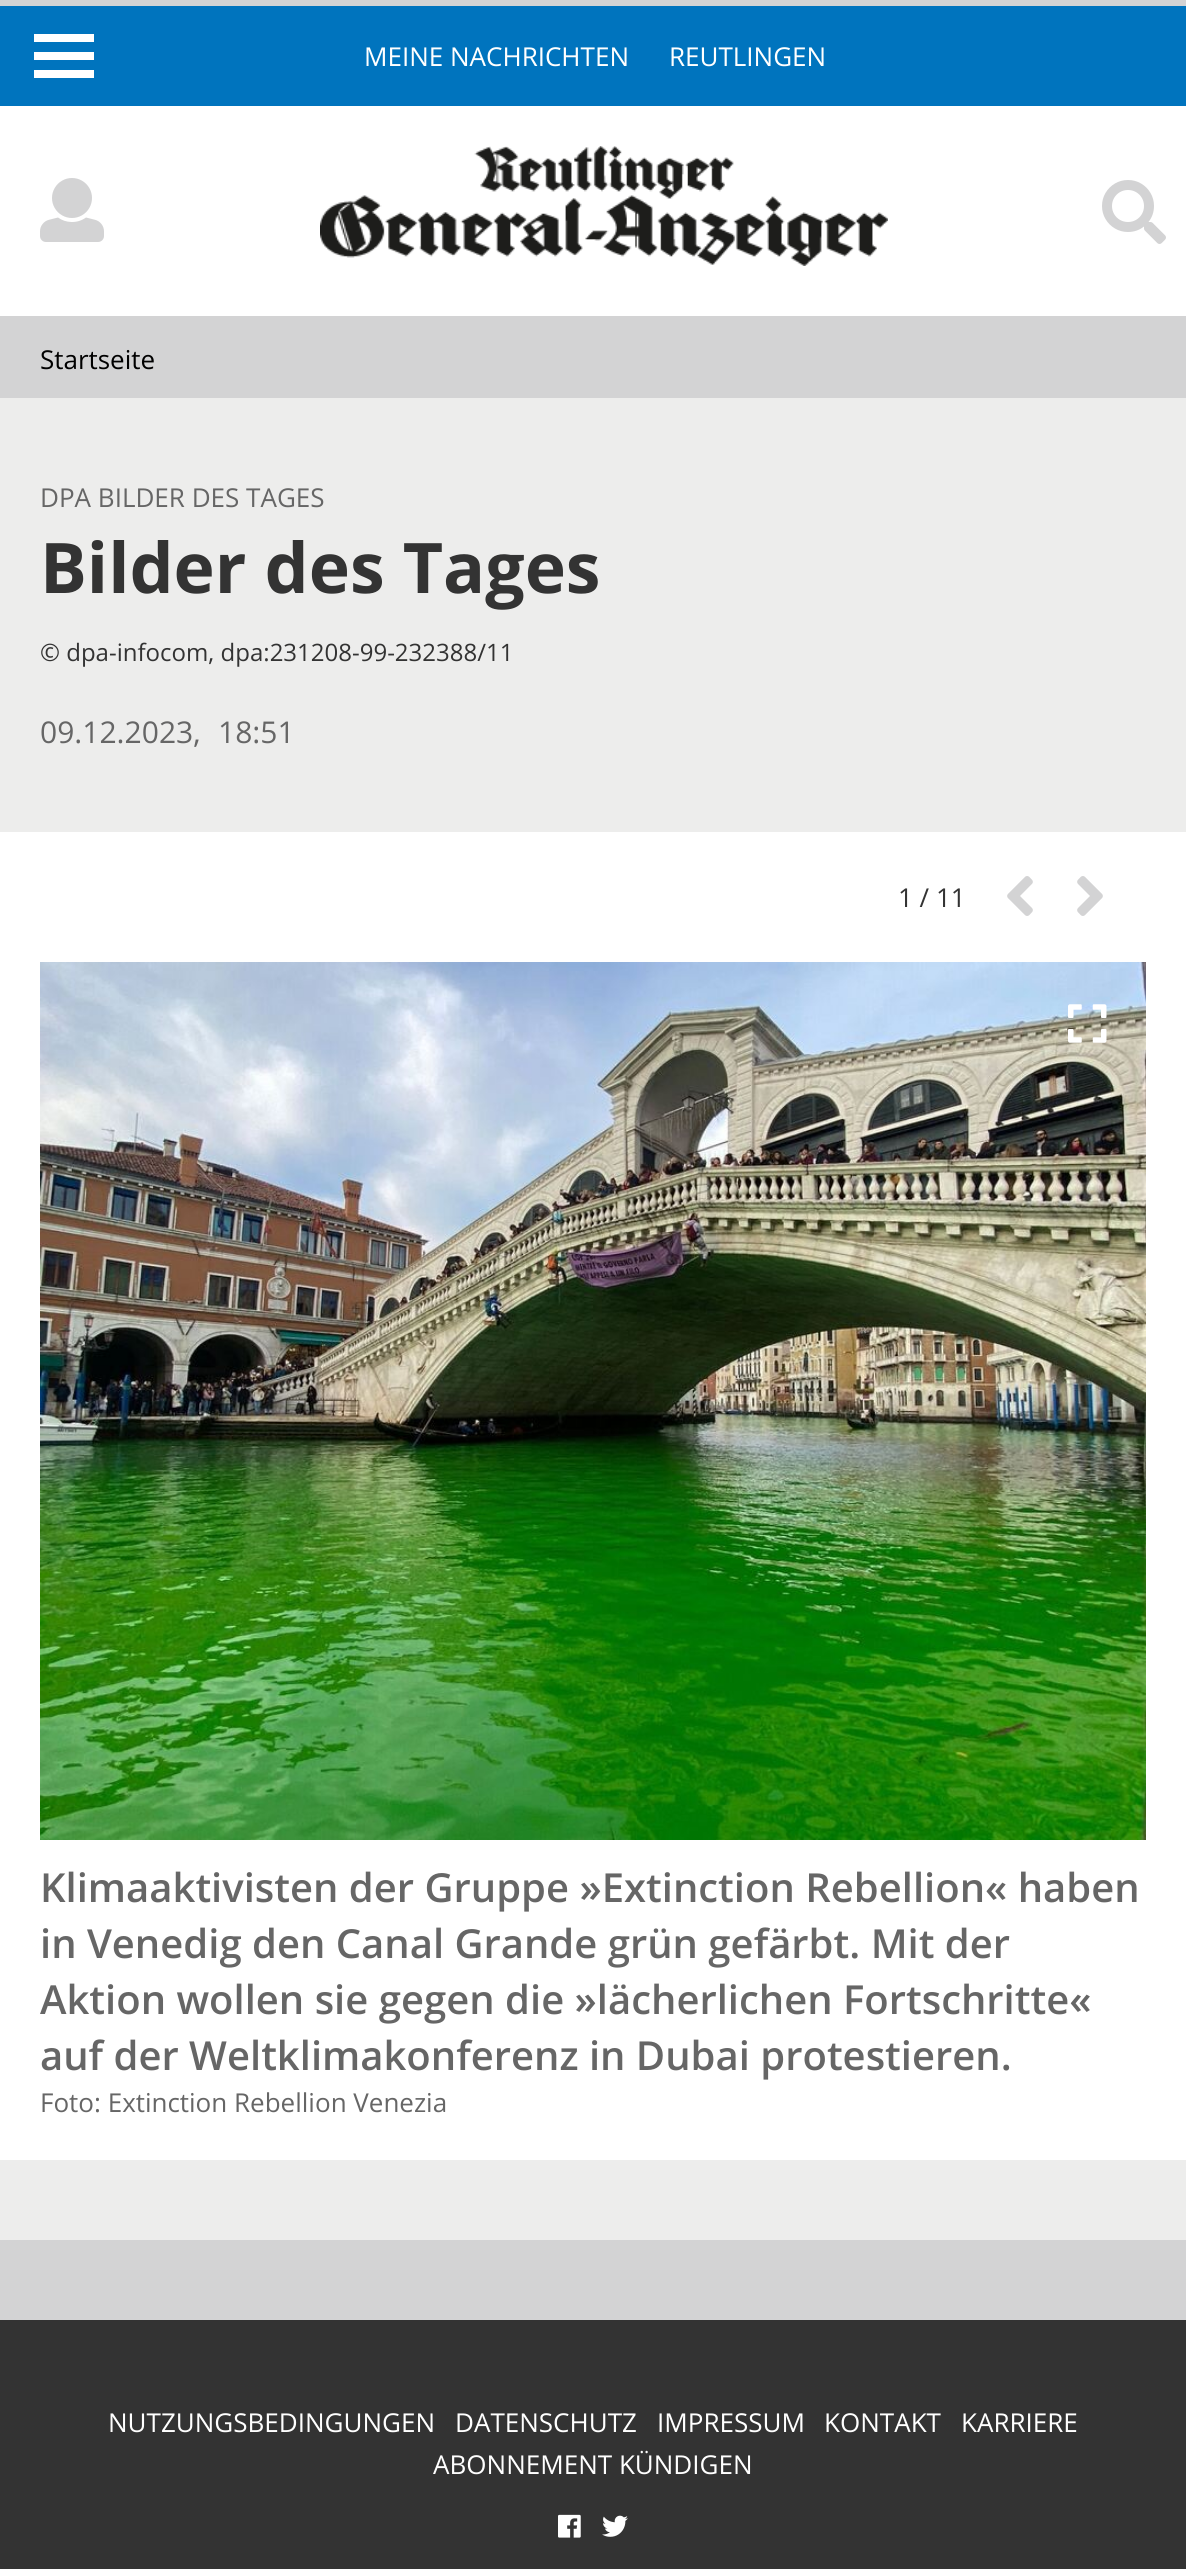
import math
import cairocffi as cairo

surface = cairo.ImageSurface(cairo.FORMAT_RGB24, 1186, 2569)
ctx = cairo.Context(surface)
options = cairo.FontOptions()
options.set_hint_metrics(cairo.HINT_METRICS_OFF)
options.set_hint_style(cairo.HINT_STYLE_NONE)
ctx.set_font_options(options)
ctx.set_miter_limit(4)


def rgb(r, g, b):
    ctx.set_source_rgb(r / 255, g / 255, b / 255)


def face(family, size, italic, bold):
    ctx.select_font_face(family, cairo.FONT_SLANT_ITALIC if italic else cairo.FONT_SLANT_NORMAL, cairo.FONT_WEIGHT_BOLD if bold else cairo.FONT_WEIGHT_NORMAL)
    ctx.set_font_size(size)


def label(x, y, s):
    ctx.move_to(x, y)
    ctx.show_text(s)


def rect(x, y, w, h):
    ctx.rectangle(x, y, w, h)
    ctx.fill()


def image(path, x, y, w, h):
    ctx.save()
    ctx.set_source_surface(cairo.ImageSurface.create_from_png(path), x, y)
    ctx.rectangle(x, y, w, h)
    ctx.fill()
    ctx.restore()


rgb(211, 211, 212)
ctx.paint()
rgb(237, 237, 236)
rect(0, 398, 1186, 1842)
rgb(255, 255, 255)
rect(0, 106, 1186, 210)
rgb(0, 116, 190)
rect(0, 6, 1186, 100)
rgb(255, 255, 255)
rect(34, 52, 60, 8)
rect(34, 34, 60, 8)
rect(34, 70, 60, 8)
face('Open Sans', 26, 0, 0)
label(364, 66, 'MEINE NACHRICHTEN')
label(669, 66, 'REUTLINGEN')
image('image0.png', 40, 178, 64, 64)
image('image1.png', 320, 146, 568, 120)
image('image2.png', 1102, 180, 64, 64)
rgb(0, 0, 0)
label(40, 369, 'Startseite')
rgb(102, 102, 102)
label(40, 507, 'DPA BILDER DES TAGES')
face('Open Sans', 69.75, 0, 1)
rgb(51, 51, 51)
label(40, 593, 'Bilder des Tages')
face('Open Sans', 24, 0, 0)
label(40, 661, '© dpa-infocom, dpa:231208-99-232388/11')
face('Open Sans', 30, 0, 0)
rgb(102, 102, 102)
label(40, 743, '09.12.2023,')
label(218, 743, '18:51')
rgb(255, 255, 255)
rect(0, 832, 1186, 1328)
face('Open Sans', 26, 0, 0)
rgb(51, 51, 51)
label(898, 907, '1 / 11')
image('image3.png', 1007, 876, 26, 40)
image('image4.png', 1077, 876, 26, 40)
image('image5.png', 40, 962, 1106, 878)
image('image6.png', 1068, 1004, 39, 39)
face('Open Sans SemiBold', 40, 0, 0)
rgb(102, 102, 102)
label(40, 1902, 'Klimaaktivisten der Gruppe »Extinction Rebellion« haben')
label(40, 1958, 'in Venedig den Canal Grande grün gefärbt. Mit der')
label(40, 2014, 'Aktion wollen sie gegen die »lächerlichen Fortschritte«')
label(40, 2070, 'auf der Weltklimakonferenz in Dubai protestieren.')
face('Open Sans', 26, 0, 0)
label(40, 2112, 'Foto: Extinction Rebellion Venezia')
rgb(51, 51, 51)
rect(0, 2320, 1186, 249)
rgb(255, 255, 255)
label(108, 2432, 'NUTZUNGSBEDINGUNGEN')
label(455, 2432, 'DATENSCHUTZ')
label(657, 2432, 'IMPRESSUM')
label(824, 2432, 'KONTAKT')
label(961, 2432, 'KARRIERE')
label(433, 2474, 'ABONNEMENT KÜNDIGEN')
image('image7.png', 558, 2514, 23, 24)
image('image8.png', 602, 2515, 26, 22)
surface.write_to_png('render.png')
